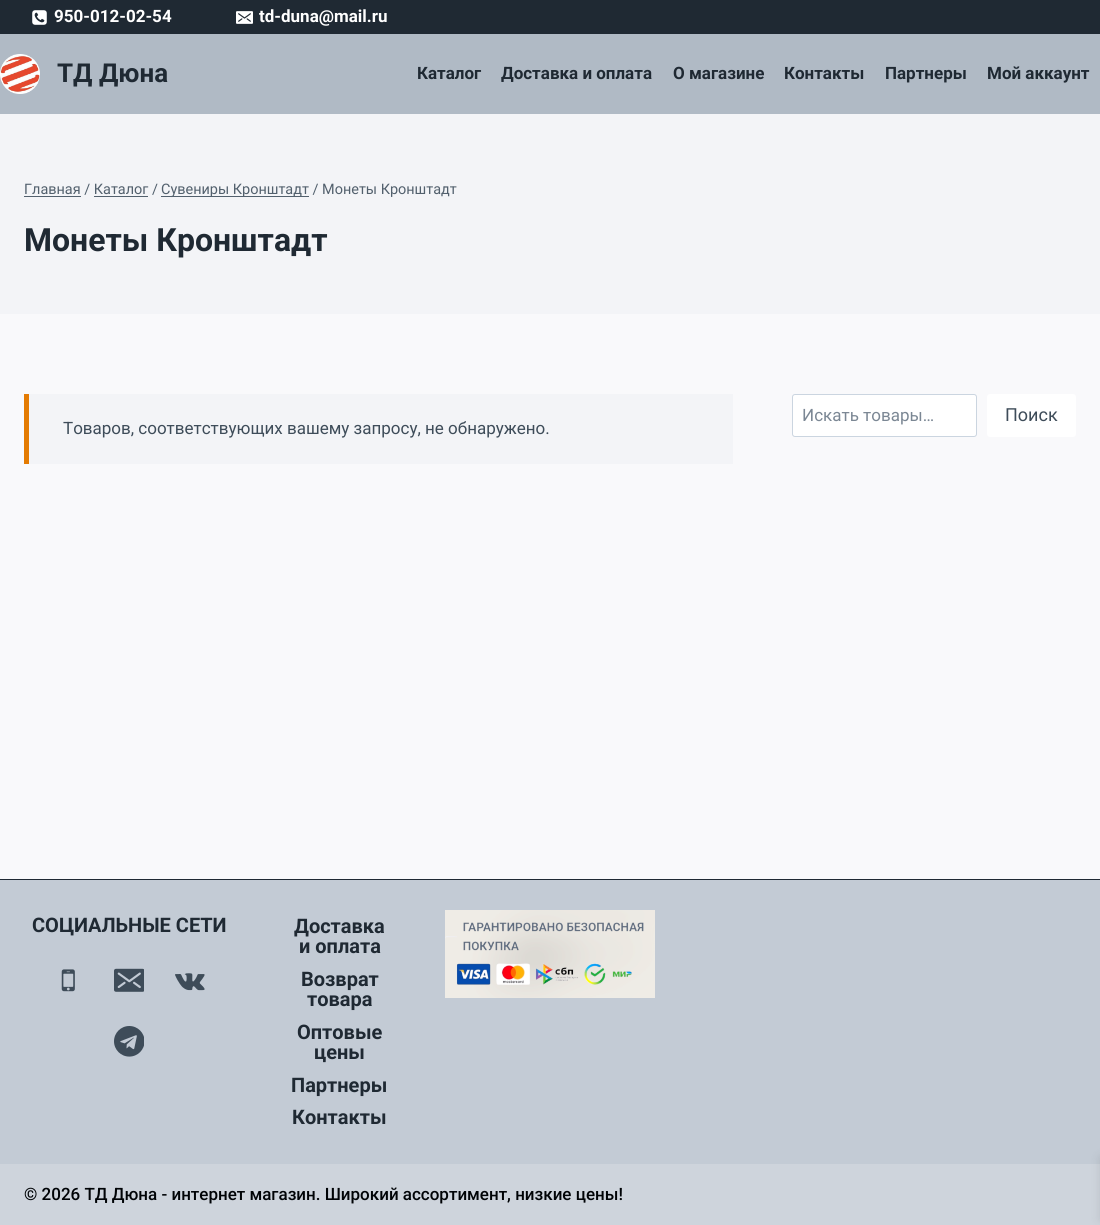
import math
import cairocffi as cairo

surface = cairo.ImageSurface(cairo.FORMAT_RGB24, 1100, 1225)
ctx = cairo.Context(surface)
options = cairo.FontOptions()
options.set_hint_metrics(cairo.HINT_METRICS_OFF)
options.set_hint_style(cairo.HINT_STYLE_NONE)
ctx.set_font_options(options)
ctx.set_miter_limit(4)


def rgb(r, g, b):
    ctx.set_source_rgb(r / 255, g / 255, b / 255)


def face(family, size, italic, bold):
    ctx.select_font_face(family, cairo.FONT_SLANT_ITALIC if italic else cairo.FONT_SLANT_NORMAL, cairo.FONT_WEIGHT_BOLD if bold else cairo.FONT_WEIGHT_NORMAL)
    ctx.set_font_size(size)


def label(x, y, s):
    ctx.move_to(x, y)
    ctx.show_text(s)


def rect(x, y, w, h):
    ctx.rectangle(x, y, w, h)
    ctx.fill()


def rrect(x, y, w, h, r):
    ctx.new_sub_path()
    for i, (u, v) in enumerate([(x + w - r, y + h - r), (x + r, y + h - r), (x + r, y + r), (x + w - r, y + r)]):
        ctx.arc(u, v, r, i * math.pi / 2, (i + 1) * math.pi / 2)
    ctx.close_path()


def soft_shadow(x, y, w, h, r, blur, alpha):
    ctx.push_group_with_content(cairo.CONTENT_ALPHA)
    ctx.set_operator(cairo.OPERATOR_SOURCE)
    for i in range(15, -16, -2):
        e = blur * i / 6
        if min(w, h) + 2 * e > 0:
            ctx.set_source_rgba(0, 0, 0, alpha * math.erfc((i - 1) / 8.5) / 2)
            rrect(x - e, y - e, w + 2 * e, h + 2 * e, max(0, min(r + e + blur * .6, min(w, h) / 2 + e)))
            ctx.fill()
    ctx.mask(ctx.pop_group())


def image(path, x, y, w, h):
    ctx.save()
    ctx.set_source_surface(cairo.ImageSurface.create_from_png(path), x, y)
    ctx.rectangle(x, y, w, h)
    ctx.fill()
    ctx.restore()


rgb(249, 249, 251)
ctx.paint()
rgb(31, 41, 51)
rect(0, 0, 1100, 34)
image('image0.png', 32, 10, 15, 15)
face('Roboto', 17, 0, 1)
rgb(255, 255, 255)
label(54, 22, '950-012-02-54')
image('image1.png', 236, 11, 17, 13)
label(259, 22, 'td-duna@mail.ru')
rgb(176, 186, 197)
rect(0, 34, 1100, 80)
image('image2.png', 0, 54, 40, 40)
face('Roboto', 26, 0, 1)
rgb(31, 41, 51)
label(57, 82, 'ТД Дюна')
face('Roboto', 17, 0, 1)
label(417, 79, 'Каталог')
label(501, 79, 'Доставка и оплата')
label(673, 79, 'О магазине')
label(784, 79, 'Контакты')
label(885, 79, 'Партнеры')
label(987, 79, 'Мой аккаунт')
rgb(243, 244, 247)
rect(0, 114, 1100, 200)
face('Roboto', 14.45, 0, 0)
rgb(82, 96, 109)
label(24, 194, 'Главная / Каталог /')
rect(24, 196, 57, 1)
rect(161, 196, 148, 1)
label(161, 194, 'Сувениры Кронштадт / Монеты Кронштадт')
rect(94, 196, 54, 1)
face('Roboto', 32, 0, 1)
rgb(31, 41, 51)
label(24, 251, 'Монеты Кронштадт')
rgb(255, 255, 255)
rrect(792.5, 394.5, 184, 42, 2.5)
ctx.fill_preserve()
rgb(203, 213, 224)
ctx.set_line_width(1)
ctx.stroke()
face('Roboto', 17, 0, 0)
rgb(123, 135, 148)
label(802, 421, 'Искать товары…')
rgb(255, 255, 255)
rrect(987, 394, 89, 43, 3)
ctx.fill()
face('Roboto', 18, 0, 0)
rgb(62, 76, 89)
label(1005, 421, 'Поиск')
rgb(243, 244, 247)
rect(29, 394, 704, 70)
rgb(228, 123, 2)
rect(24, 394, 5, 70)
face('Roboto', 17, 0, 0)
rgb(62, 76, 89)
label(63, 434, 'Товаров, соответствующих вашему запросу, не обнаружено.')
rgb(195, 203, 213)
rect(0, 880, 1100, 284)
rgb(31, 41, 51)
rect(0, 879, 1100, 1)
face('Roboto', 20, 0, 1)
label(32, 932, 'СОЦИАЛЬНЫЕ СЕТИ')
image('image3.png', 61, 969, 14, 23)
image('image4.png', 114, 968, 30, 24)
image('image5.png', 175, 973, 30, 18)
image('image6.png', 114, 1026, 30, 31)
label(294, 933, 'Доставка')
label(299, 953, 'и оплата')
label(301, 986, 'Возврат')
label(307, 1006, 'товара')
label(297, 1039, 'Оптовые')
label(314, 1059, 'цены')
label(291, 1092, 'Партнеры')
label(292, 1124, 'Контакты')
image('image7.png', 445, 910, 210, 88)
rgb(206, 212, 220)
rect(0, 1164, 1100, 61)
face('Roboto Medium', 17, 0, 0)
rgb(0, 3, 6)
label(24, 1200, '© 2026 ТД Дюна - интернет магазин. Широкий ассортимент, низкие цены!')
rgb(0, 0, 0)
soft_shadow(1100, 1157, 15, 63, 0, 5, 0.1)
surface.write_to_png('render.png')
